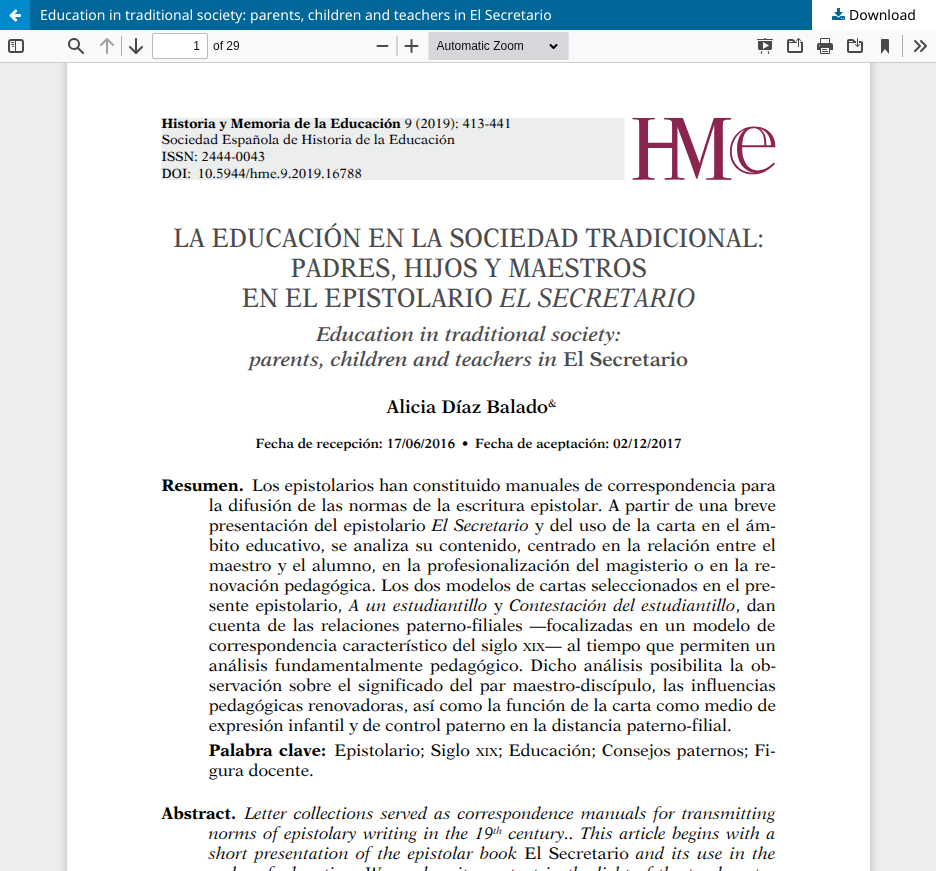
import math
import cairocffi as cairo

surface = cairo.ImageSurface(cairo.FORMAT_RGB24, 936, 871)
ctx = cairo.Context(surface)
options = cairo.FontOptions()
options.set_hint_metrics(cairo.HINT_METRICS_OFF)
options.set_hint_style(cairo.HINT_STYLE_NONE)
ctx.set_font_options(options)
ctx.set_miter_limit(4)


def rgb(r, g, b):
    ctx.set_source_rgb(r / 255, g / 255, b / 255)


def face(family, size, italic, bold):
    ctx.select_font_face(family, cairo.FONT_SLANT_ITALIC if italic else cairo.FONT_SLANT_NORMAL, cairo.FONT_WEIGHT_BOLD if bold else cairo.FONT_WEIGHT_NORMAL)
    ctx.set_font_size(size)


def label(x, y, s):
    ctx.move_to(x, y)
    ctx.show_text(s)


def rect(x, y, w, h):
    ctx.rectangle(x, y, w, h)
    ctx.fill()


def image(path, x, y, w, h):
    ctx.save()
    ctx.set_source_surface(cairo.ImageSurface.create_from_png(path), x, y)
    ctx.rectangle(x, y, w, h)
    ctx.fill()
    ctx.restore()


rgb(255, 255, 255)
ctx.paint()
rgb(0, 103, 152)
rect(30, 0, 782, 30)
rgb(0, 138, 203)
rect(0, 0, 30, 30)
image('image0.png', 9, 9, 12, 13)
face('Noto Sans', 14, 0, 0)
rgb(255, 255, 255)
label(40, 20, 'Education in traditional society: parents, children and teachers in El Secretario')
image('image1.png', 832, 8, 13, 12)
rgb(0, 0, 0)
label(849, 20, 'Download')
image('image2.png', 0, 30, 936, 841)
surface.write_to_png('render.png')
